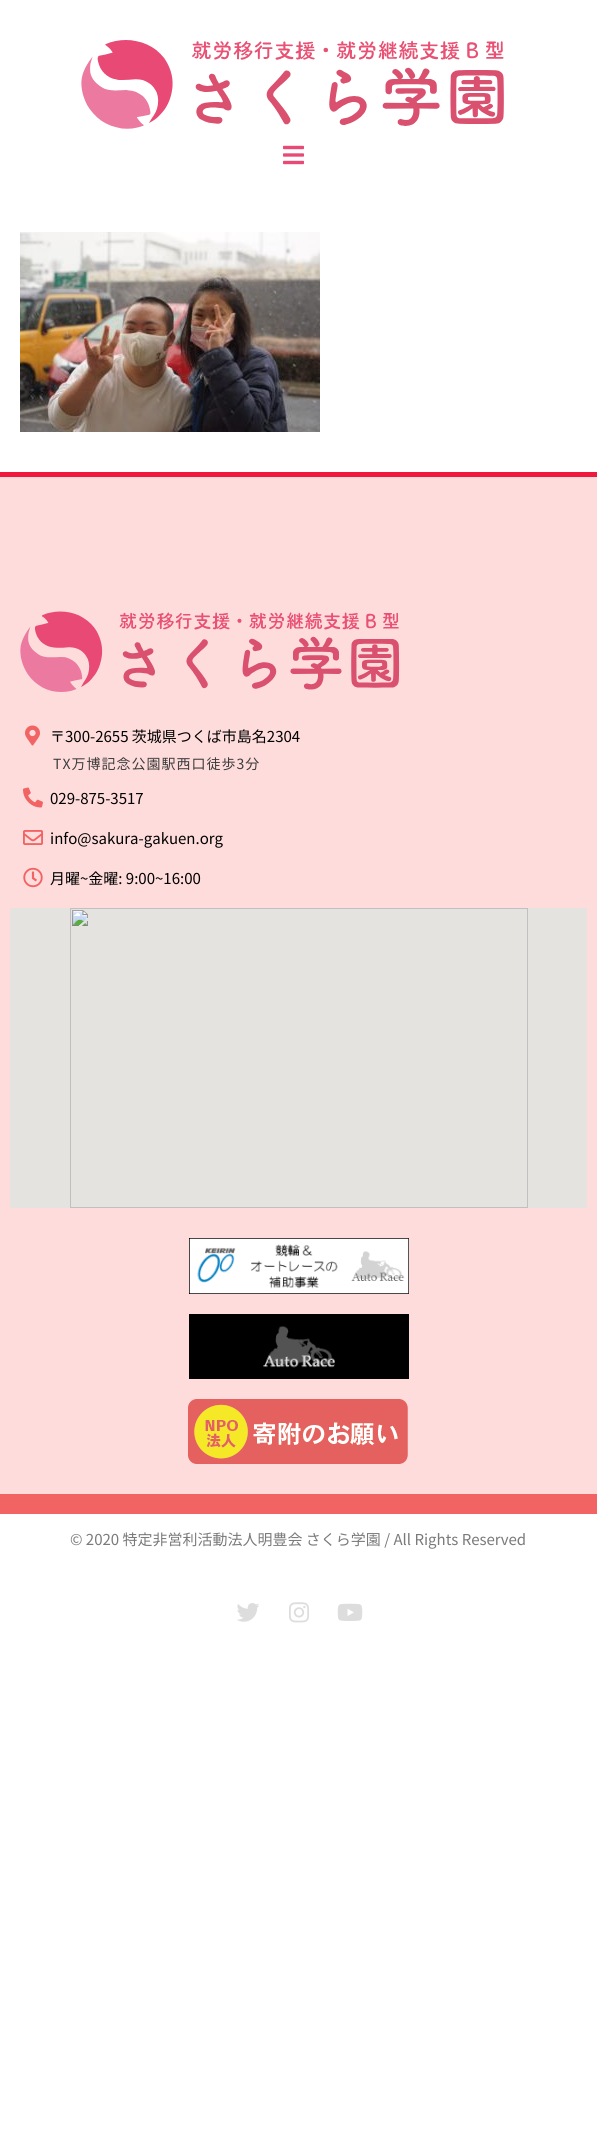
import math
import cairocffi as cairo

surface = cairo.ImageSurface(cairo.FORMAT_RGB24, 597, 2141)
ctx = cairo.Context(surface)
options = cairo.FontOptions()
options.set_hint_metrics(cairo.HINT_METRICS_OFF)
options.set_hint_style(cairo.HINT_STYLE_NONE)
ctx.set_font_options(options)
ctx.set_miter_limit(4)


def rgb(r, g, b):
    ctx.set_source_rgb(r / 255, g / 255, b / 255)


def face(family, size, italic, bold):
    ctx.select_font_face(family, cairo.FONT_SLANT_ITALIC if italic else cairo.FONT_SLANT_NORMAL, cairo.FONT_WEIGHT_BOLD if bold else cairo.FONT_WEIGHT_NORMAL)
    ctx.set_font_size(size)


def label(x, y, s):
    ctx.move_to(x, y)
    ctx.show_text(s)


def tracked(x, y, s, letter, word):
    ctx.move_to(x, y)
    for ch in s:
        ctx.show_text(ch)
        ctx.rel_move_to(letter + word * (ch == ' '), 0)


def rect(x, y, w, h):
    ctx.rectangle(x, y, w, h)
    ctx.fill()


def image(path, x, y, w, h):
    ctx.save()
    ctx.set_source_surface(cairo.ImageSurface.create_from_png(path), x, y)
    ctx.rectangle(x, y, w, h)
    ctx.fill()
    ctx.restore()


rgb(255, 255, 255)
ctx.paint()
image('image0.png', 81, 40, 423, 89)
image('image1.png', 283, 145, 21, 20)
image('image2.png', 20, 232, 300, 200)
rgb(255, 220, 220)
rect(0, 477, 597, 1017)
rgb(240, 24, 61)
rect(0, 472, 597, 5)
image('image3.png', 20, 611, 380, 81)
image('image4.png', 25, 725, 15, 21)
face('Noto Sans JP', 15, 0, 0)
rgb(0, 0, 0)
label(50, 742, '〒300-2655 茨城県つくば市島名2304')
face('Noto Sans JP', 14, 0, 0)
rgb(60, 60, 60)
tracked(53, 769, 'TX万博記念公園駅西口徒歩3分', 1, 0)
image('image5.png', 23, 787, 20, 21)
face('Noto Sans JP', 15, 0, 0)
rgb(0, 0, 0)
label(50, 804, '029-875-3517')
image('image6.png', 23, 830, 20, 15)
label(50, 844, 'info@sakura-gakuen.org')
image('image7.png', 23, 867, 20, 21)
label(50, 884, '月曜~金曜: 9:00~16:00')
image('image8.png', 10, 908, 577, 300)
image('image9.png', 189, 1238, 220, 56)
image('image10.png', 189, 1314, 220, 65)
image('image11.png', 188, 1399, 220, 65)
rgb(242, 99, 99)
rect(0, 1494, 597, 20)
rgb(122, 122, 122)
label(70, 1545, '© 2020 特定非営利活動法人明豊会 さくら学園 / All Rights Reserved')
image('image12.png', 237, 1603, 22, 19)
image('image13.png', 289, 1602, 20, 21)
image('image14.png', 337, 1603, 26, 18)
surface.write_to_png('render.png')
